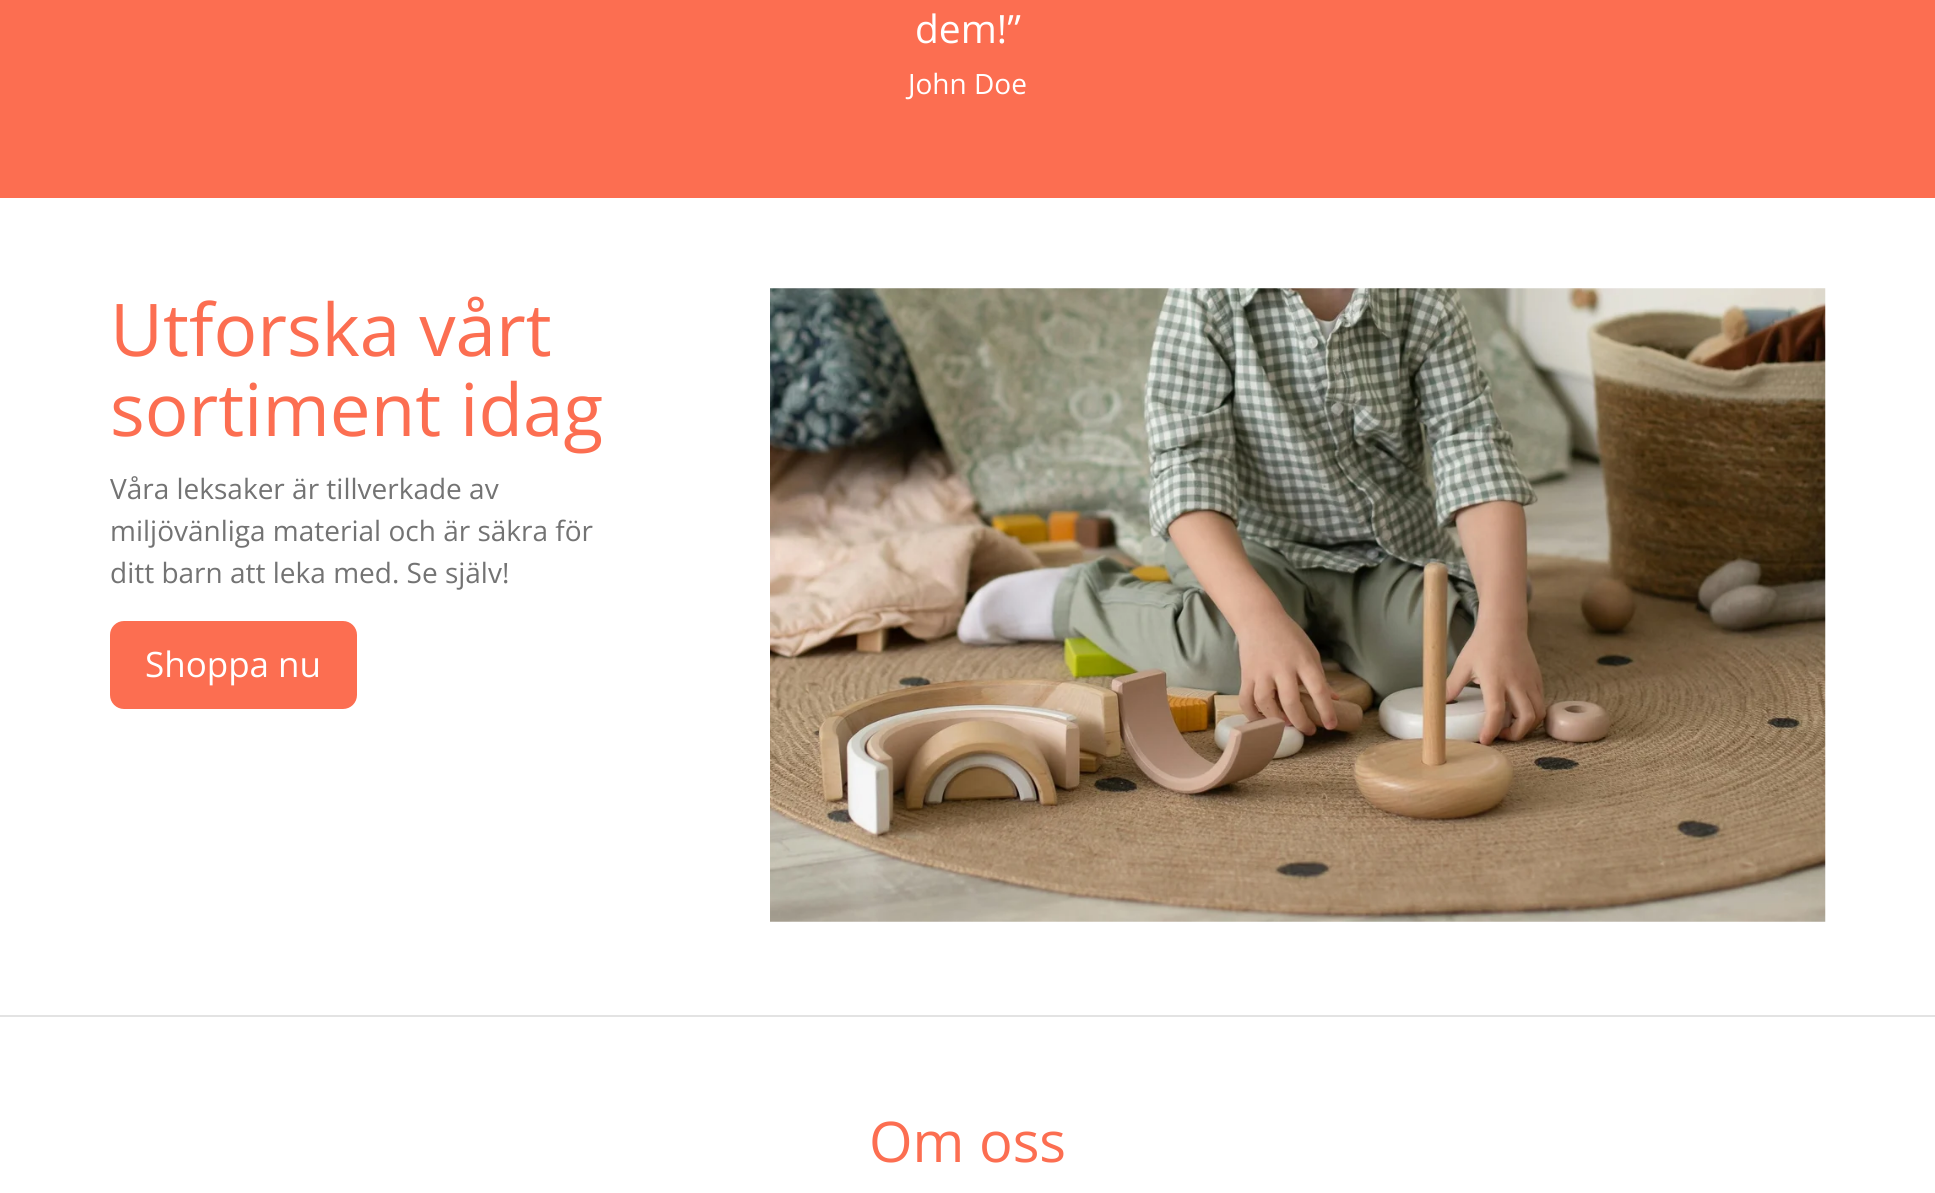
import math
import cairocffi as cairo

surface = cairo.ImageSurface(cairo.FORMAT_RGB24, 1935, 1193)
ctx = cairo.Context(surface)
options = cairo.FontOptions()
options.set_hint_metrics(cairo.HINT_METRICS_OFF)
options.set_hint_style(cairo.HINT_STYLE_NONE)
ctx.set_font_options(options)
ctx.set_miter_limit(4)


def rgb(r, g, b):
    ctx.set_source_rgb(r / 255, g / 255, b / 255)


def face(family, size, italic, bold):
    ctx.select_font_face(family, cairo.FONT_SLANT_ITALIC if italic else cairo.FONT_SLANT_NORMAL, cairo.FONT_WEIGHT_BOLD if bold else cairo.FONT_WEIGHT_NORMAL)
    ctx.set_font_size(size)


def label(x, y, s):
    ctx.move_to(x, y)
    ctx.show_text(s)


def rect(x, y, w, h):
    ctx.rectangle(x, y, w, h)
    ctx.fill()


def rrect(x, y, w, h, r):
    ctx.new_sub_path()
    for i, (u, v) in enumerate([(x + w - r, y + h - r), (x + r, y + h - r), (x + r, y + r), (x + w - r, y + r)]):
        ctx.arc(u, v, r, i * math.pi / 2, (i + 1) * math.pi / 2)
    ctx.close_path()


def image(path, x, y, w, h):
    ctx.save()
    ctx.set_source_surface(cairo.ImageSurface.create_from_png(path), x, y)
    ctx.rectangle(x, y, w, h)
    ctx.fill()
    ctx.restore()


rgb(255, 255, 255)
ctx.paint()
rgb(252, 110, 81)
rect(0, 0, 1935, 198)
face('Open Sans', 39, 0, 0)
rgb(255, 255, 255)
label(915, 43, 'dem!”')
face('Open Sans', 28, 0, 0)
label(908, 94, 'John Doe')
face('Open Sans', 72.75, 0, 0)
rgb(252, 110, 81)
label(110, 356, 'Utforska vårt')
label(110, 436, 'sortiment idag')
face('Open Sans', 28, 0, 0)
rgb(115, 115, 115)
label(110, 499, 'Våra leksaker är tillverkade av')
label(110, 541, 'miljövänliga material och är säkra för')
label(110, 583, 'ditt barn att leka med. Se själv!')
rgb(252, 110, 81)
rrect(110, 621, 247, 88, 14)
ctx.fill()
face('Open Sans', 35, 0, 0)
rgb(255, 255, 255)
label(145, 677, 'Shoppa nu')
image('image0.png', 770, 288, 1056, 634)
rgb(227, 227, 227)
rect(0, 1015, 1935, 2)
face('Open Sans', 56, 0, 0)
rgb(252, 110, 81)
label(869, 1162, 'Om oss')
surface.write_to_png('render.png')
